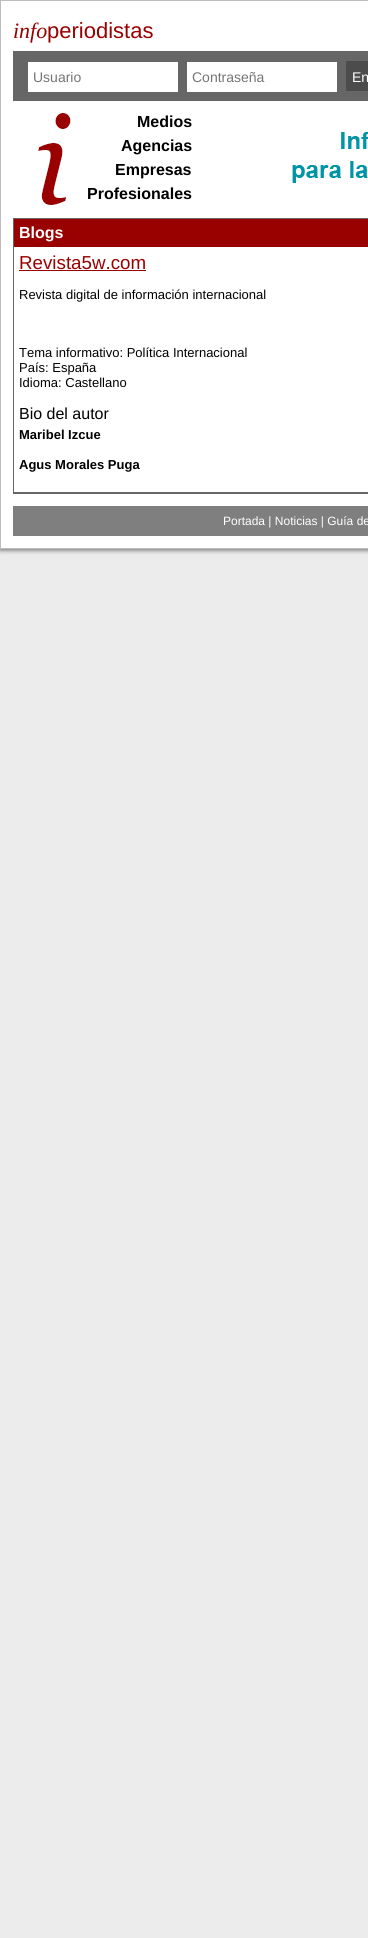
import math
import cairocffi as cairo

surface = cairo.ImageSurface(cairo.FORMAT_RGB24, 368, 1938)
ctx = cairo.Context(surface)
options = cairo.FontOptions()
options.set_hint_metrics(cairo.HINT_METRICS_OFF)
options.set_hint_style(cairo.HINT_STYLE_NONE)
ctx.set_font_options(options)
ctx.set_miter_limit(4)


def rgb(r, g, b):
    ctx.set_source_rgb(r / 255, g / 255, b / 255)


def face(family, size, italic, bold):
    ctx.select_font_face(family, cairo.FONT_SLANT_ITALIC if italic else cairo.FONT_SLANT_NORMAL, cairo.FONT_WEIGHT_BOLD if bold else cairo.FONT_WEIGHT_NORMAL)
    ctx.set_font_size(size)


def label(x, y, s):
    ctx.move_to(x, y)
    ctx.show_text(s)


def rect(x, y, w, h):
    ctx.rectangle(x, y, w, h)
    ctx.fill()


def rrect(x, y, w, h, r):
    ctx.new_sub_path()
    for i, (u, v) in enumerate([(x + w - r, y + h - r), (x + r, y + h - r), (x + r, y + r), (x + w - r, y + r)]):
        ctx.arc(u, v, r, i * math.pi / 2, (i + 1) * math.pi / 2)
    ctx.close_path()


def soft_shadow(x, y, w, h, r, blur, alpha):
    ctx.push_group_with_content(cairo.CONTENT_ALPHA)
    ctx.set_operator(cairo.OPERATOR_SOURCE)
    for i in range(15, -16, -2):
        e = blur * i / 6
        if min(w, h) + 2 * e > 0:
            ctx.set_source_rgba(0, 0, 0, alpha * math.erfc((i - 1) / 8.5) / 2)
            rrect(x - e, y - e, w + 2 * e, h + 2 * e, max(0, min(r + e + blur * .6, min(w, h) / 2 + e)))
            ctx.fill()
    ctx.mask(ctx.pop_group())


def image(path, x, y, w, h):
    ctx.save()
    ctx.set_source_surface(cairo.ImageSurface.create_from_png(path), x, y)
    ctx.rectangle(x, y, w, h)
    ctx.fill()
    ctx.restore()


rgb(236, 236, 236)
ctx.paint()
rgb(102, 102, 102)
soft_shadow(0, 1, 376, 549, 0, 2.5, 1)
rgb(255, 255, 255)
ctx.rectangle(0.5, 0.5, 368, 548)
ctx.fill_preserve()
rgb(189, 189, 189)
ctx.set_line_width(1)
ctx.stroke()
face('Liberation Serif', 22, 1, 0)
rgb(153, 0, 0)
label(13, 38, 'info')
face('Liberation Sans', 22, 0, 0)
label(47, 38, 'periodistas')
rgb(102, 102, 102)
rect(13, 51, 355, 50)
rgb(255, 255, 255)
rect(28, 62, 150, 30)
face('Liberation Sans', 14, 0, 0)
rgb(117, 117, 117)
label(33, 82, 'Usuario')
rgb(255, 255, 255)
rect(187, 62, 150, 30)
rgb(117, 117, 117)
label(192, 82, 'Contraseña')
rgb(76, 76, 76)
rect(346, 61, 22, 30)
rgb(255, 255, 255)
label(352, 82, 'En')
image('image0.png', 38, 113, 33, 92)
face('Liberation Sans', 16, 0, 1)
rgb(0, 0, 0)
label(137, 127, 'Medios')
label(121, 151, 'Agencias')
label(115, 175, 'Empresas')
label(87, 199, 'Profesionales')
image('image1.png', 246, 108, 122, 100)
rgb(102, 102, 102)
rect(13, 218, 355, 1)
rect(13, 492, 355, 2)
rect(13, 218, 1, 276)
rgb(153, 0, 0)
rect(14, 219, 354, 28)
rgb(255, 255, 255)
label(19, 238, 'Blogs')
face('Liberation Sans', 18.75, 0, 0)
rgb(153, 0, 0)
label(19, 269, 'Revista5w.com')
rect(19, 270, 127, 1)
face('Liberation Sans', 13, 0, 0)
rgb(0, 0, 0)
label(19, 299, 'Revista digital de información internacional')
label(19, 357, 'Tema informativo: Política Internacional')
label(19, 372, 'País: España')
label(19, 387, 'Idioma: Castellano')
face('Liberation Sans', 16, 0, 0)
label(19, 419, 'Bio del autor')
face('Liberation Sans', 13, 0, 1)
label(19, 439, 'Maribel Izcue')
label(19, 469, 'Agus Morales Puga')
rgb(127, 127, 127)
rect(13, 506, 355, 30)
face('Liberation Sans', 12, 0, 0)
rgb(255, 255, 255)
label(223, 525, 'Portada | Noticias | Guía de')
surface.write_to_png('render.png')
